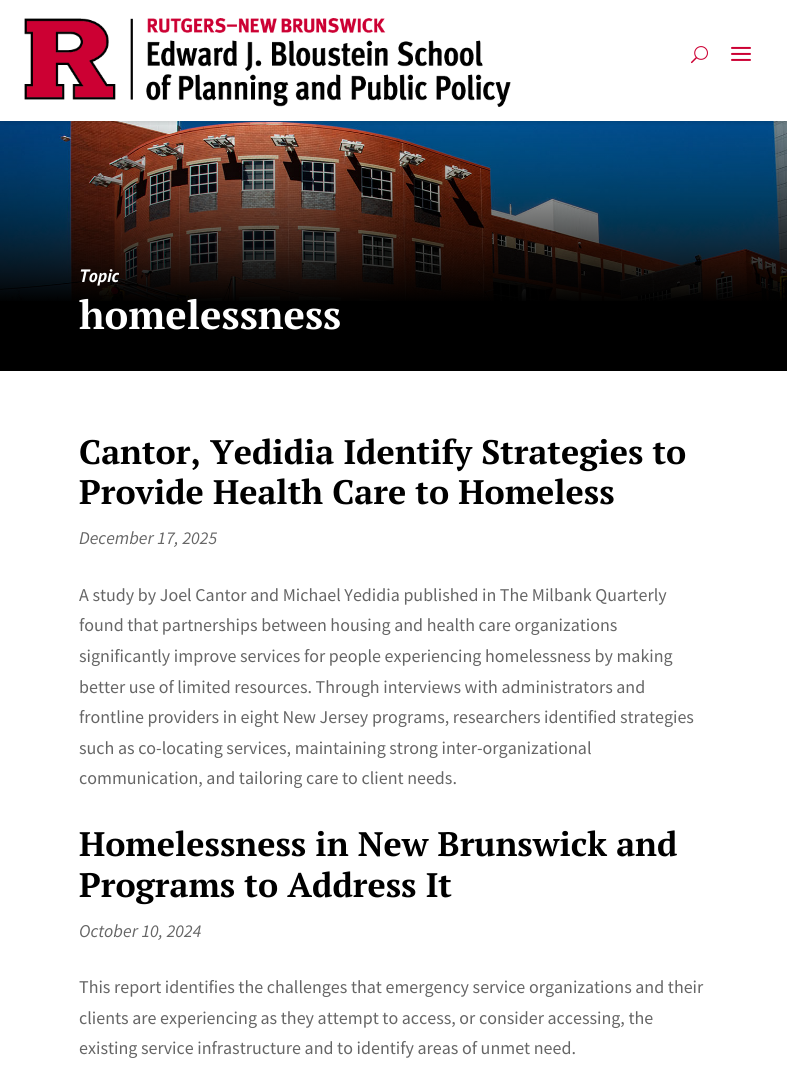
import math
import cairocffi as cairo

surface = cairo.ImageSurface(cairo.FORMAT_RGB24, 787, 1070)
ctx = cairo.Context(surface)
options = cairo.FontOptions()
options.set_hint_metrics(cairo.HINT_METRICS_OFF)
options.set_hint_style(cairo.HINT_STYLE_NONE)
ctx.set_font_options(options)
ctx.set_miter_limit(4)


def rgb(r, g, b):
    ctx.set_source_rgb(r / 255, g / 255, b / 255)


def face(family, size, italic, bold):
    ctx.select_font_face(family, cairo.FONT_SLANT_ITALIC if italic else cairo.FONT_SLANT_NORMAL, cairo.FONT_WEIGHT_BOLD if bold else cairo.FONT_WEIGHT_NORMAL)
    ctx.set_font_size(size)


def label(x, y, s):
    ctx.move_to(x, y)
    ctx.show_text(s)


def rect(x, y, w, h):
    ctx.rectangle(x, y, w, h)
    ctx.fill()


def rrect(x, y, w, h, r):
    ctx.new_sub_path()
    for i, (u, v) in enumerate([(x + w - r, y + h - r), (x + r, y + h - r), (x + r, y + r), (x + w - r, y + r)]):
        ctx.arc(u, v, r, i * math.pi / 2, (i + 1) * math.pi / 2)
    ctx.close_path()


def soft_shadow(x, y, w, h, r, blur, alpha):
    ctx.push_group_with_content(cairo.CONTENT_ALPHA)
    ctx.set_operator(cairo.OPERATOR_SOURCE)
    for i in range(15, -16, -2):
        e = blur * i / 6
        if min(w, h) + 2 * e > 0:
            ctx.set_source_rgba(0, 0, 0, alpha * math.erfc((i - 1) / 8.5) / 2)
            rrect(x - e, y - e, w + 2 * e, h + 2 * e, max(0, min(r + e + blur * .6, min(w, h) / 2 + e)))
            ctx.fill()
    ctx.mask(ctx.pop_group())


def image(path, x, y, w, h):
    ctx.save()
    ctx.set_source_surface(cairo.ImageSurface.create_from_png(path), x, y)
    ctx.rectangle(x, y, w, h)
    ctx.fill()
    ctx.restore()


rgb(255, 255, 255)
ctx.paint()
image('image3.png', 0, 121, 787, 180)
ctx.save()
ctx.rectangle(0, 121, 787, 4)
ctx.clip()
rgb(0, 0, 0)
soft_shadow(0, 1, 787, 121, 0, 3, 0.15)
ctx.restore()
image('image0.png', 24, 18, 487, 89)
image('image1.png', 691, 46, 17, 18)
image('image2.png', 731, 46, 20, 15)
rgb(0, 0, 0)
rect(0, 301, 787, 70)
face('PT Sans', 18, 1, 1)
rgb(255, 255, 255)
label(79, 282, 'Topic')
face('PT Serif', 40, 0, 1)
label(79, 329, 'homelessness')
face('PT Serif', 34, 0, 1)
rgb(0, 0, 0)
label(79, 464, 'Cantor, Yedidia Identify Strategies to')
label(79, 504, 'Provide Health Care to Homeless')
face('Source Sans Pro', 18, 1, 0)
rgb(102, 102, 102)
label(79, 544, 'December 17, 2025')
face('Source Sans Pro', 18, 0, 0)
label(79, 601, 'A study by Joel Cantor and Michael Yedidia published in The Milbank Quarterly')
label(79, 631, 'found that partnerships between housing and health care organizations')
label(79, 662, 'significantly improve services for people experiencing homelessness by making')
label(79, 693, 'better use of limited resources. Through interviews with administrators and')
label(79, 723, 'frontline providers in eight New Jersey programs, researchers identified strategies')
label(79, 754, 'such as co-locating services, maintaining strong inter-organizational')
label(79, 784, 'communication, and tailoring care to client needs.')
face('PT Serif', 34, 0, 1)
rgb(0, 0, 0)
label(79, 856, 'Homelessness in New Brunswick and')
label(79, 897, 'Programs to Address It')
face('Source Sans Pro', 18, 1, 0)
rgb(102, 102, 102)
label(79, 937, 'October 10, 2024')
face('Source Sans Pro', 18, 0, 0)
label(79, 993, 'This report identifies the challenges that emergency service organizations and their')
label(79, 1024, 'clients are experiencing as they attempt to access, or consider accessing, the')
label(79, 1054, 'existing service infrastructure and to identify areas of unmet need.')
surface.write_to_png('render.png')
